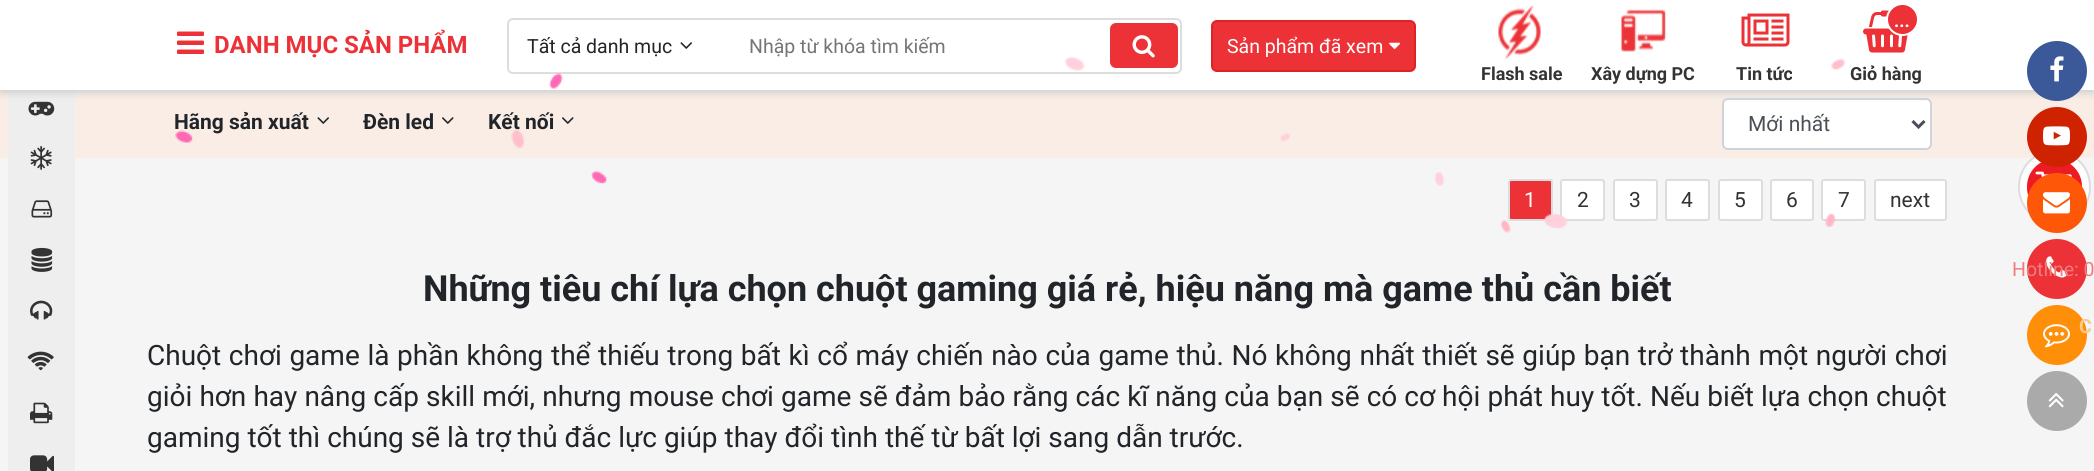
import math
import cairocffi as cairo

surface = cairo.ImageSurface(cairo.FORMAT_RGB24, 2094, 471)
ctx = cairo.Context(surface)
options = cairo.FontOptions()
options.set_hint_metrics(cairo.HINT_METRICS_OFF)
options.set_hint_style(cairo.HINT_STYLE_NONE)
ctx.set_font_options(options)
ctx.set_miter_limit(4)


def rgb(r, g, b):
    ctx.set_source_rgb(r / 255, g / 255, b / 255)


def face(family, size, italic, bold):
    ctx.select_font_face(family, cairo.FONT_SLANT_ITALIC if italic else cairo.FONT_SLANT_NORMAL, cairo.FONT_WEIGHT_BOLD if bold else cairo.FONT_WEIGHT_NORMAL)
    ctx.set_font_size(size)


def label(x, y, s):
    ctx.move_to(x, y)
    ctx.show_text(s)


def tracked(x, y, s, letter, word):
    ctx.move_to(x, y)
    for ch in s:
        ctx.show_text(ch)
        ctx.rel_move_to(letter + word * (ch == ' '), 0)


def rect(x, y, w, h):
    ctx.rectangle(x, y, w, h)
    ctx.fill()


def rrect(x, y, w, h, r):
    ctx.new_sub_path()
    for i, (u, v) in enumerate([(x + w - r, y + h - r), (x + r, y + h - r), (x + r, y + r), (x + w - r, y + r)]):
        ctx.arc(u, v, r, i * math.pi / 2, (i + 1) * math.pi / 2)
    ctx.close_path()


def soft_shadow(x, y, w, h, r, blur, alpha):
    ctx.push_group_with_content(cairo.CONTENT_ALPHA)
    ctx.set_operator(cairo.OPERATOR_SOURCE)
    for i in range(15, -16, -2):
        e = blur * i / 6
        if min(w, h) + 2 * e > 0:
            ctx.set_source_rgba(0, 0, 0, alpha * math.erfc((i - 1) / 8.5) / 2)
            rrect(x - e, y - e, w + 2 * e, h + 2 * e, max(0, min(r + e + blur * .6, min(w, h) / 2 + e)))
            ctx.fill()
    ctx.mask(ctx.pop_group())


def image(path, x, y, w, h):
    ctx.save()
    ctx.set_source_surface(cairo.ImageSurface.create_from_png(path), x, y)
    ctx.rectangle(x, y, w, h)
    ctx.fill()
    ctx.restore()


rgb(245, 245, 245)
ctx.paint()
rgb(249, 237, 229)
rect(0, 90, 2094, 68)
rgb(238, 238, 238)
rect(8, 90, 67, 381)
image('image0.png', 28, 101, 27, 15)
image('image1.png', 30, 146, 22, 24)
image('image2.png', 31, 200, 22, 18)
image('image3.png', 31, 247, 22, 25)
image('image4.png', 30, 300, 23, 20)
image('image5.png', 27, 351, 27, 20)
image('image6.png', 30, 402, 23, 22)
image('image7.png', 30, 455, 24, 16)
rgb(255, 255, 255)
rrect(1723, 99, 208, 50, 5)
ctx.fill_preserve()
rgb(206, 212, 218)
ctx.stroke()
rgb(206, 206, 206)
soft_shadow(0, 3, 2094, 90, 0, 4, 1)
rgb(255, 255, 255)
rect(0, 0, 2094, 90)
image('image8.png', 177, 31, 27, 23)
face('Roboto', 24, 0, 1)
rgb(236, 50, 55)
label(214, 53, 'DANH MỤC SẢN PHẨM')
rrect(508, 19, 673, 54, 5)
rgb(221, 221, 221)
ctx.stroke()
face('Roboto', 19.5, 0, 0)
rgb(33, 37, 41)
label(527, 53, 'Tất cả danh mục')
image('image9.png', 680, 42, 12, 7)
rgb(117, 117, 117)
label(749, 53, 'Nhập từ khóa tìm kiếm')
rgb(236, 50, 55)
rrect(1110, 23, 68, 45, 6)
ctx.fill()
image('image10.png', 1132, 35, 23, 23)
rrect(1212, 21, 203, 50, 5)
ctx.fill_preserve()
rgb(220, 35, 40)
ctx.stroke()
rgb(255, 255, 255)
label(1227, 53, 'Sản phẩm đã xem')
image('image11.png', 1389, 42, 12, 7)
image('image12.png', 1498, 5, 43, 55)
face('Roboto', 18, 0, 1)
rgb(51, 51, 51)
label(1481, 80, 'Flash sale')
image('image13.png', 1621, 9, 45, 43)
label(1591, 80, 'Xây dựng PC')
image('image14.png', 1741, 13, 49, 34)
label(1736, 80, 'Tin tức')
image('image15.png', 1863, 10, 48, 43)
rgb(236, 50, 55)
ctx.arc(1902.5, 19.5, 15.5, 0, 2 * math.pi)
ctx.fill_preserve()
rgb(255, 255, 255)
ctx.stroke()
label(1894, 27, '...')
rgb(51, 51, 51)
label(1850, 80, 'Giỏ hàng')
face('Roboto', 21, 0, 1)
rgb(33, 37, 41)
label(174, 129, 'Hãng sản xuất')
image('image17.png', 317, 117, 12, 7)
label(363, 129, 'Đèn led')
image('image18.png', 442, 117, 12, 7)
label(488, 129, 'Kết nối')
image('image18.png', 562, 117, 12, 7)
face('Roboto', 21, 0, 0)
rgb(73, 80, 87)
label(1748, 131, 'Mới nhất')
rgb(236, 50, 55)
rrect(1509, 180, 43, 40, 2)
ctx.fill_preserve()
rgb(221, 221, 221)
ctx.stroke()
rgb(255, 255, 255)
label(1524, 207, '1')
rrect(1561, 180, 43, 40, 2)
ctx.fill_preserve()
rgb(221, 221, 221)
ctx.stroke()
rgb(51, 51, 51)
label(1577, 207, '2')
rgb(255, 255, 255)
rrect(1614, 180, 43, 40, 2)
ctx.fill_preserve()
rgb(221, 221, 221)
ctx.stroke()
rgb(51, 51, 51)
label(1629, 207, '3')
rgb(255, 255, 255)
rrect(1666, 180, 43, 40, 2)
ctx.fill_preserve()
rgb(221, 221, 221)
ctx.stroke()
rgb(51, 51, 51)
label(1681, 207, '4')
rgb(255, 255, 255)
rrect(1719, 180, 43, 40, 2)
ctx.fill_preserve()
rgb(221, 221, 221)
ctx.stroke()
rgb(51, 51, 51)
label(1734, 207, '5')
rgb(255, 255, 255)
rrect(1771, 180, 42, 40, 2)
ctx.fill_preserve()
rgb(221, 221, 221)
ctx.stroke()
rgb(51, 51, 51)
label(1786, 207, '6')
rgb(255, 255, 255)
rrect(1822, 180, 43, 40, 2)
ctx.fill_preserve()
rgb(221, 221, 221)
ctx.stroke()
rgb(51, 51, 51)
label(1838, 207, '7')
image('image16.png', 175, 56, 1671, 177)
ctx.new_path()
ctx.move_to(1912.5, 121)
ctx.line_to(1918.5, 127)
ctx.line_to(1924.5, 121)
rgb(73, 80, 87)
ctx.set_line_width(3)
ctx.stroke()
rgb(255, 255, 255)
rrect(1875, 180, 71, 40, 2)
ctx.fill_preserve()
rgb(221, 221, 221)
ctx.set_line_width(2)
ctx.stroke()
rgb(51, 51, 51)
label(1890, 207, 'next')
face('Roboto', 36, 0, 1)
rgb(33, 37, 41)
label(423, 301, 'Những tiêu chí lựa chọn chuột gaming giá rẻ, hiệu năng mà game thủ cần biết')
face('Roboto', 28, 0, 0)
tracked(147, 365, 'Chuột chơi game là phần không thể thiếu trong bất kì cổ máy chiến nào của game thủ. Nó không nhất thiết sẽ giúp bạn trở thành một người chơi', 0, 0.7)
tracked(147, 406, 'giỏi hơn hay nâng cấp skill mới, nhưng mouse chơi game sẽ đảm bảo rằng các kĩ năng của bạn sẽ có cơ hội phát huy tốt. Nếu biết lựa chọn chuột', 0, 0.15)
label(147, 447, 'gaming tốt thì chúng sẽ là trợ thủ đắc lực giúp thay đổi tình thế từ bất lợi sang dẫn trước.')
ctx.set_source_rgba(1, 1, 1, 0.88)
rrect(2019, 151, 71, 72, 35.5)
ctx.fill_preserve()
rgb(221, 221, 221)
ctx.stroke()
rgb(237, 27, 36)
rrect(2027, 159, 55, 56, 27.5)
ctx.fill()
image('image19.png', 2035, 171, 37, 7)
rgb(59, 89, 152)
ctx.arc(2057, 71, 30, 0, 2 * math.pi)
ctx.fill()
image('image20.png', 2050, 56, 14, 26)
rgb(207, 34, 0)
ctx.arc(2057, 137, 30, 0, 2 * math.pi)
ctx.fill()
image('image21.png', 2043, 126, 27, 20)
rgb(253, 87, 7)
ctx.arc(2057, 203, 30, 0, 2 * math.pi)
ctx.fill()
image('image22.png', 2043, 192, 27, 22)
rgb(236, 50, 55)
ctx.arc(2057, 269, 30, 0, 2 * math.pi)
ctx.fill()
image('image23.png', 2046, 256, 22, 22)
face('Roboto', 19.5, 0, 0)
rgb(240, 124, 127)
label(2012, 276, 'Hotline: 0')
rgb(255, 142, 9)
ctx.new_path()
ctx.arc(2057, 335, 30, 0, 2 * math.pi)
ctx.fill()
image('image24.png', 2043, 324, 27, 24)
face('Roboto', 19.5, 0, 1)
rgb(249, 202, 145)
label(2079, 333, 'C')
rgb(170, 170, 170)
ctx.new_path()
ctx.arc(2057, 401, 30, 0, 2 * math.pi)
ctx.fill()
image('image25.png', 2048, 392, 16, 16)
surface.write_to_png('render.png')
